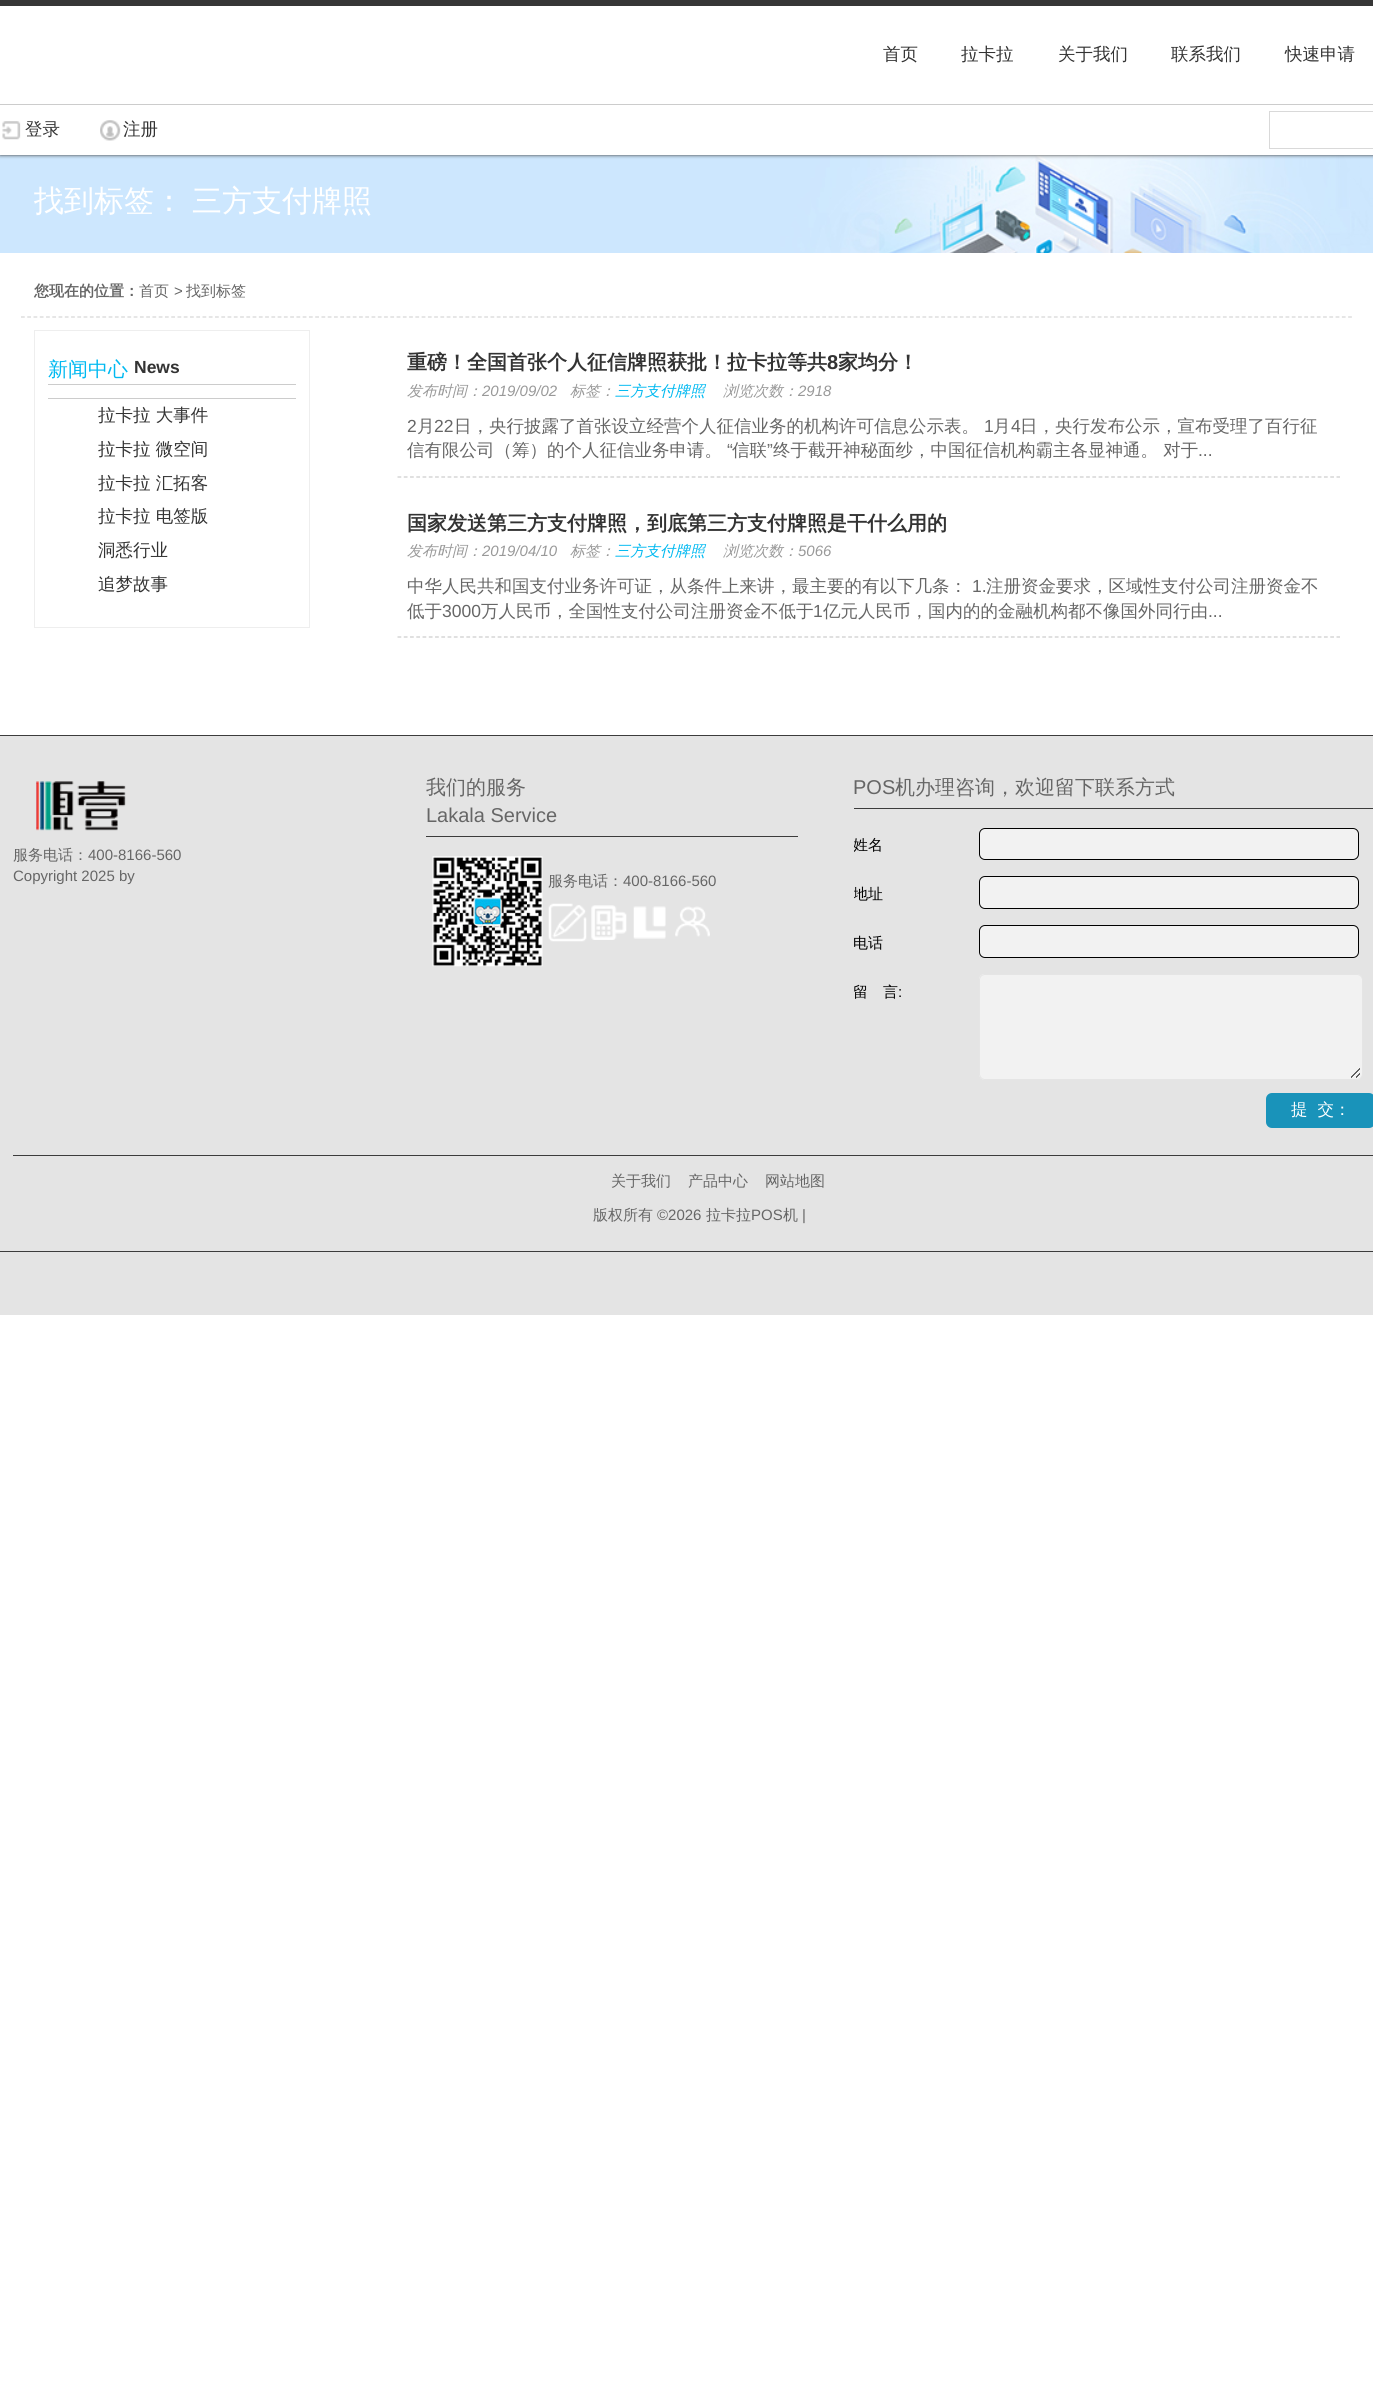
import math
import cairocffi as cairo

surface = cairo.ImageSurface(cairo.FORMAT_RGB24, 1373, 2405)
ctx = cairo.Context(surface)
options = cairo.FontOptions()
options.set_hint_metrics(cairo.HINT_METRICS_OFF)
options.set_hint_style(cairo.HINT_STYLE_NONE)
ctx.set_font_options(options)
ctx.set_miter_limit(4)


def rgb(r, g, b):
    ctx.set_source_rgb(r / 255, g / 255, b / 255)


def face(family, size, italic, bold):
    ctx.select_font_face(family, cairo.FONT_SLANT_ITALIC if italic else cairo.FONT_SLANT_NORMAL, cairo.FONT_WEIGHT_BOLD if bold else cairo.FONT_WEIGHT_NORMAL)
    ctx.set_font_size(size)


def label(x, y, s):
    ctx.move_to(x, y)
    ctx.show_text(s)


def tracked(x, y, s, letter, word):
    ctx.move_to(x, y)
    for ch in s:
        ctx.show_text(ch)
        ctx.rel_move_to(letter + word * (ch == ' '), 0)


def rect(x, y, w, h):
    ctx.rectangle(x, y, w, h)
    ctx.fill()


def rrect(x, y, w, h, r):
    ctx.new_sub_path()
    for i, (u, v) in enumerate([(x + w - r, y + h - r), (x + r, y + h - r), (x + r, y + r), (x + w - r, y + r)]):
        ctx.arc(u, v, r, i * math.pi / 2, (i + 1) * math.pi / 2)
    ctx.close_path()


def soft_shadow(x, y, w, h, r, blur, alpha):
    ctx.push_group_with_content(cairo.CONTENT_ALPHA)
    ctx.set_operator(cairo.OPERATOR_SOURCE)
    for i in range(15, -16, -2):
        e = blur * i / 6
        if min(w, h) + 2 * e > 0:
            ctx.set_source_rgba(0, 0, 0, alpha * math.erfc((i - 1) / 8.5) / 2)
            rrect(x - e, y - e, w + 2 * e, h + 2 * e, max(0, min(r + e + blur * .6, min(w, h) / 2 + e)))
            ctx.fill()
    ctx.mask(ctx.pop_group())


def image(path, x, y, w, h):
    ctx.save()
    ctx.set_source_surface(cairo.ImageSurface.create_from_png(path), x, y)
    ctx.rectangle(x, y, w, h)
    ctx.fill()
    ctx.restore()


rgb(255, 255, 255)
ctx.paint()
image('image2.png', 0, 155, 1373, 98)
rgb(51, 51, 51)
soft_shadow(0, 0, 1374, 155, 0, 2, 1)
rgb(255, 255, 255)
rect(0, 6, 1373, 149)
rgb(54, 54, 54)
rect(0, 0, 1373, 6)
face('WenQuanYi Zen Hei Medium', 17.5, 0, 0)
rgb(51, 51, 51)
label(883, 60, '首页')
label(961, 60, '拉卡拉')
label(1058, 60, '关于我们')
label(1171, 60, '联系我们')
label(1285, 60, '快速申请')
rgb(204, 204, 204)
rect(0, 104, 1373, 1)
image('image0.png', 2, 121, 19, 19)
rgb(51, 51, 51)
label(25, 135, '登录')
image('image1.png', 100, 120, 21, 21)
label(123, 135, '注册')
ctx.rectangle(1269.5, 111.5, 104, 37)
rgb(217, 217, 217)
ctx.set_line_width(1)
ctx.stroke()
face('WenQuanYi Zen Hei Medium', 30, 0, 0)
rgb(255, 255, 255)
tracked(34, 211, '找到标签： 三方支付牌照', 0, -1)
ctx.new_path()
ctx.move_to(21, 317)
ctx.line_to(1352.5, 317)
rgb(213, 213, 213)
ctx.set_line_width(1.2)
ctx.set_dash([3.75, 2.51])
ctx.stroke()
face('WenQuanYi Zen Hei', 15, 0, 1)
rgb(102, 102, 102)
label(34, 296, '您现在的位置：')
face('WenQuanYi Zen Hei Medium', 15, 0, 0)
label(139, 296, '首页')
face('Liberation Sans', 15, 0, 0)
label(174, 296, '>')
face('WenQuanYi Zen Hei Medium', 15, 0, 0)
label(186, 296, '找到标签')
ctx.rectangle(34.5, 330.5, 275, 297)
rgb(238, 238, 238)
ctx.set_line_width(1)
ctx.set_dash([])
ctx.stroke()
rgb(204, 204, 204)
rect(48, 398, 248, 1)
rect(48, 384, 248, 1)
face('WenQuanYi Zen Hei Medium', 20, 0, 0)
rgb(0, 185, 241)
label(48, 376, '新闻中心')
face('Liberation Sans', 17.5, 0, 1)
rgb(51, 51, 51)
label(134, 373, 'News')
face('WenQuanYi Zen Hei Medium', 17.5, 0, 0)
label(98, 421, '拉卡拉 大事件')
label(98, 455, '拉卡拉 微空间')
label(98, 489, '拉卡拉 汇拓客')
label(98, 522, '拉卡拉 电签版')
label(98, 556, '洞悉行业')
label(98, 590, '追梦故事')
ctx.new_path()
ctx.move_to(397.5, 477)
ctx.line_to(1340, 477)
rgb(204, 204, 204)
ctx.set_line_width(1.2)
ctx.set_dash([3.75, 2.51])
ctx.stroke()
face('WenQuanYi Zen Hei', 20, 0, 1)
rgb(51, 51, 51)
label(407, 369, '重磅！全国首张个人征信牌照获批！拉卡拉等共')
face('Liberation Sans', 20, 0, 1)
label(827, 369, '8')
face('WenQuanYi Zen Hei', 20, 0, 1)
label(838, 369, '家均分！')
face('WenQuanYi Zen Hei Medium', 15, 1, 0)
rgb(153, 153, 153)
label(407, 396, '发布时间：')
face('Liberation Sans', 15, 1, 0)
label(482, 396, '2019/09/02')
face('WenQuanYi Zen Hei Medium', 15, 1, 0)
label(570, 396, '标签：')
rgb(0, 185, 241)
label(615, 396, '三方支付牌照')
rgb(153, 153, 153)
label(723, 396, '浏览次数：')
face('Liberation Sans', 15, 1, 0)
label(798, 396, '2918')
face('Liberation Sans', 17.5, 0, 0)
rgb(102, 102, 102)
label(407, 432, '2')
face('WenQuanYi Zen Hei Medium', 17.5, 0, 0)
label(417, 432, '月')
face('Liberation Sans', 17.5, 0, 0)
label(434, 432, '22')
face('WenQuanYi Zen Hei Medium', 17.5, 0, 0)
label(454, 432, '日，央行披露了首张设立经营个人征信业务的机构许可信息公示表。')
face('Liberation Sans', 17.5, 0, 0)
label(984, 432, '1')
face('WenQuanYi Zen Hei Medium', 17.5, 0, 0)
label(993, 432, '月')
face('Liberation Sans', 17.5, 0, 0)
label(1011, 432, '4')
face('WenQuanYi Zen Hei Medium', 17.5, 0, 0)
label(1020, 432, '日，央行发布公示，宣布受理了百行征')
label(407, 456, '信有限公司（筹）的个人征信业务申请。')
face('Liberation Sans', 17.5, 0, 0)
label(727, 456, '“')
face('WenQuanYi Zen Hei Medium', 17.5, 0, 0)
label(732, 456, '信联')
face('Liberation Sans', 17.5, 0, 0)
label(767, 456, '”')
face('WenQuanYi Zen Hei Medium', 17.5, 0, 0)
label(773, 456, '终于截开神秘面纱，中国征信机构霸主各显神通。 对于')
face('Liberation Sans', 17.5, 0, 0)
label(1198, 456, '...')
ctx.new_path()
ctx.move_to(397.5, 637)
ctx.line_to(1340, 637)
rgb(204, 204, 204)
ctx.stroke()
face('WenQuanYi Zen Hei', 20, 0, 1)
rgb(51, 51, 51)
label(407, 530, '国家发送第三方支付牌照，到底第三方支付牌照是干什么用的')
face('WenQuanYi Zen Hei Medium', 15, 1, 0)
rgb(153, 153, 153)
label(407, 556, '发布时间：')
face('Liberation Sans', 15, 1, 0)
label(482, 556, '2019/04/10')
face('WenQuanYi Zen Hei Medium', 15, 1, 0)
label(570, 556, '标签：')
rgb(0, 185, 241)
label(615, 556, '三方支付牌照')
rgb(153, 153, 153)
label(723, 556, '浏览次数：')
face('Liberation Sans', 15, 1, 0)
label(798, 556, '5066')
face('WenQuanYi Zen Hei Medium', 17.5, 0, 0)
rgb(102, 102, 102)
label(407, 592, '中华人民共和国支付业务许可证，从条件上来讲，最主要的有以下几条：')
face('Liberation Sans', 17.5, 0, 0)
label(972, 592, '1.')
face('WenQuanYi Zen Hei Medium', 17.5, 0, 0)
label(986, 592, '注册资金要求，区域性支付公司注册资金不')
label(407, 617, '低于')
face('Liberation Sans', 17.5, 0, 0)
label(442, 617, '3000')
face('WenQuanYi Zen Hei Medium', 17.5, 0, 0)
label(481, 617, '万人民币，全国性支付公司注册资金不低于')
face('Liberation Sans', 17.5, 0, 0)
label(813, 617, '1')
face('WenQuanYi Zen Hei Medium', 17.5, 0, 0)
label(823, 617, '亿元人民币，国内的的金融机构都不像国外同行由')
face('Liberation Sans', 17.5, 0, 0)
label(1208, 617, '...')
rgb(228, 228, 228)
rect(0, 736, 1373, 579)
rgb(60, 60, 60)
rect(0, 735, 1373, 1)
image('image3.png', 36, 781, 90, 50)
face('WenQuanYi Zen Hei Medium', 15, 0, 0)
rgb(102, 102, 102)
label(13, 860, '服务电话：')
face('Liberation Sans', 15, 0, 0)
label(88, 860, '400-8166-560')
label(13, 881, 'Copyright 2025 by')
rgb(60, 60, 60)
rect(426, 836, 372, 1)
face('WenQuanYi Zen Hei Medium', 20, 0, 0)
rgb(102, 102, 102)
label(426, 794, '我们的服务')
face('Liberation Sans', 20, 0, 0)
label(426, 822, 'Lakala Service')
image('image4.png', 432, 856, 111, 111)
face('WenQuanYi Zen Hei Medium', 15, 0, 0)
label(548, 886, '服务电话：')
face('Liberation Sans', 15, 0, 0)
label(623, 886, '400-8166-560')
image('image5.png', 548, 903, 39, 39)
image('image6.png', 591, 905, 36, 35)
image('image7.png', 633, 906, 33, 33)
image('image8.png', 675, 906, 35, 31)
rgb(60, 60, 60)
rect(854, 808, 519, 1)
face('Liberation Sans', 20, 0, 0)
rgb(102, 102, 102)
label(853, 794, 'POS')
face('WenQuanYi Zen Hei Medium', 20, 0, 0)
label(895, 794, '机办理咨询，欢迎留下联系方式')
ctx.save()
ctx.rectangle(854, 828, 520, 36)
ctx.clip()
face('WenQuanYi Zen Hei Medium', 15, 0, 0)
rgb(0, 0, 0)
label(853, 850, '姓名')
ctx.restore()
image('image9.png', 979, 828, 380, 32)
rrect(979.5, 828.5, 379, 31, 5.5)
rgb(0, 0, 0)
ctx.set_line_width(1)
ctx.set_dash([])
ctx.stroke()
ctx.save()
ctx.rectangle(854, 876, 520, 37)
ctx.clip()
face('WenQuanYi Zen Hei Medium', 15, 0, 0)
label(853, 899, '地址')
ctx.restore()
image('image10.png', 979, 876, 380, 33)
rrect(979.5, 876.5, 379, 32, 5.5)
ctx.stroke()
face('WenQuanYi Zen Hei Medium', 15, 0, 0)
label(853, 948, '电话')
image('image11.png', 979, 925, 380, 32)
rrect(979.5, 925.5, 379, 32, 5.5)
ctx.stroke()
label(853, 997, '留　言')
face('Liberation Sans', 15, 0, 0)
label(898, 997, ':')
image('image12.png', 979, 974, 383, 106)
rrect(979.5, 974.5, 383, 105, 5.5)
rgb(229, 229, 229)
ctx.stroke()
rgb(25, 147, 186)
rrect(1266, 1093, 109, 35, 6)
ctx.fill()
face('WenQuanYi Zen Hei Medium', 16.5, 0, 0)
rgb(255, 255, 255)
label(1291, 1115, '提  交：')
rgb(60, 60, 60)
rect(13, 1155, 1360, 1)
face('WenQuanYi Zen Hei Medium', 15, 0, 0)
rgb(102, 102, 102)
label(611, 1186, '关于我们')
label(688, 1186, '产品中心')
label(765, 1186, '网站地图')
label(593, 1220, '版权所有')
face('Liberation Sans', 15, 0, 0)
label(657, 1220, '©2026')
face('WenQuanYi Zen Hei Medium', 15, 0, 0)
label(706, 1220, '拉卡拉')
face('Liberation Sans', 15, 0, 0)
label(751, 1220, 'POS')
face('WenQuanYi Zen Hei Medium', 15, 0, 0)
label(783, 1220, '机')
face('Liberation Sans', 15, 0, 0)
label(802, 1220, '|')
rgb(60, 60, 60)
rect(0, 1251, 1373, 1)
surface.write_to_png('render.png')
